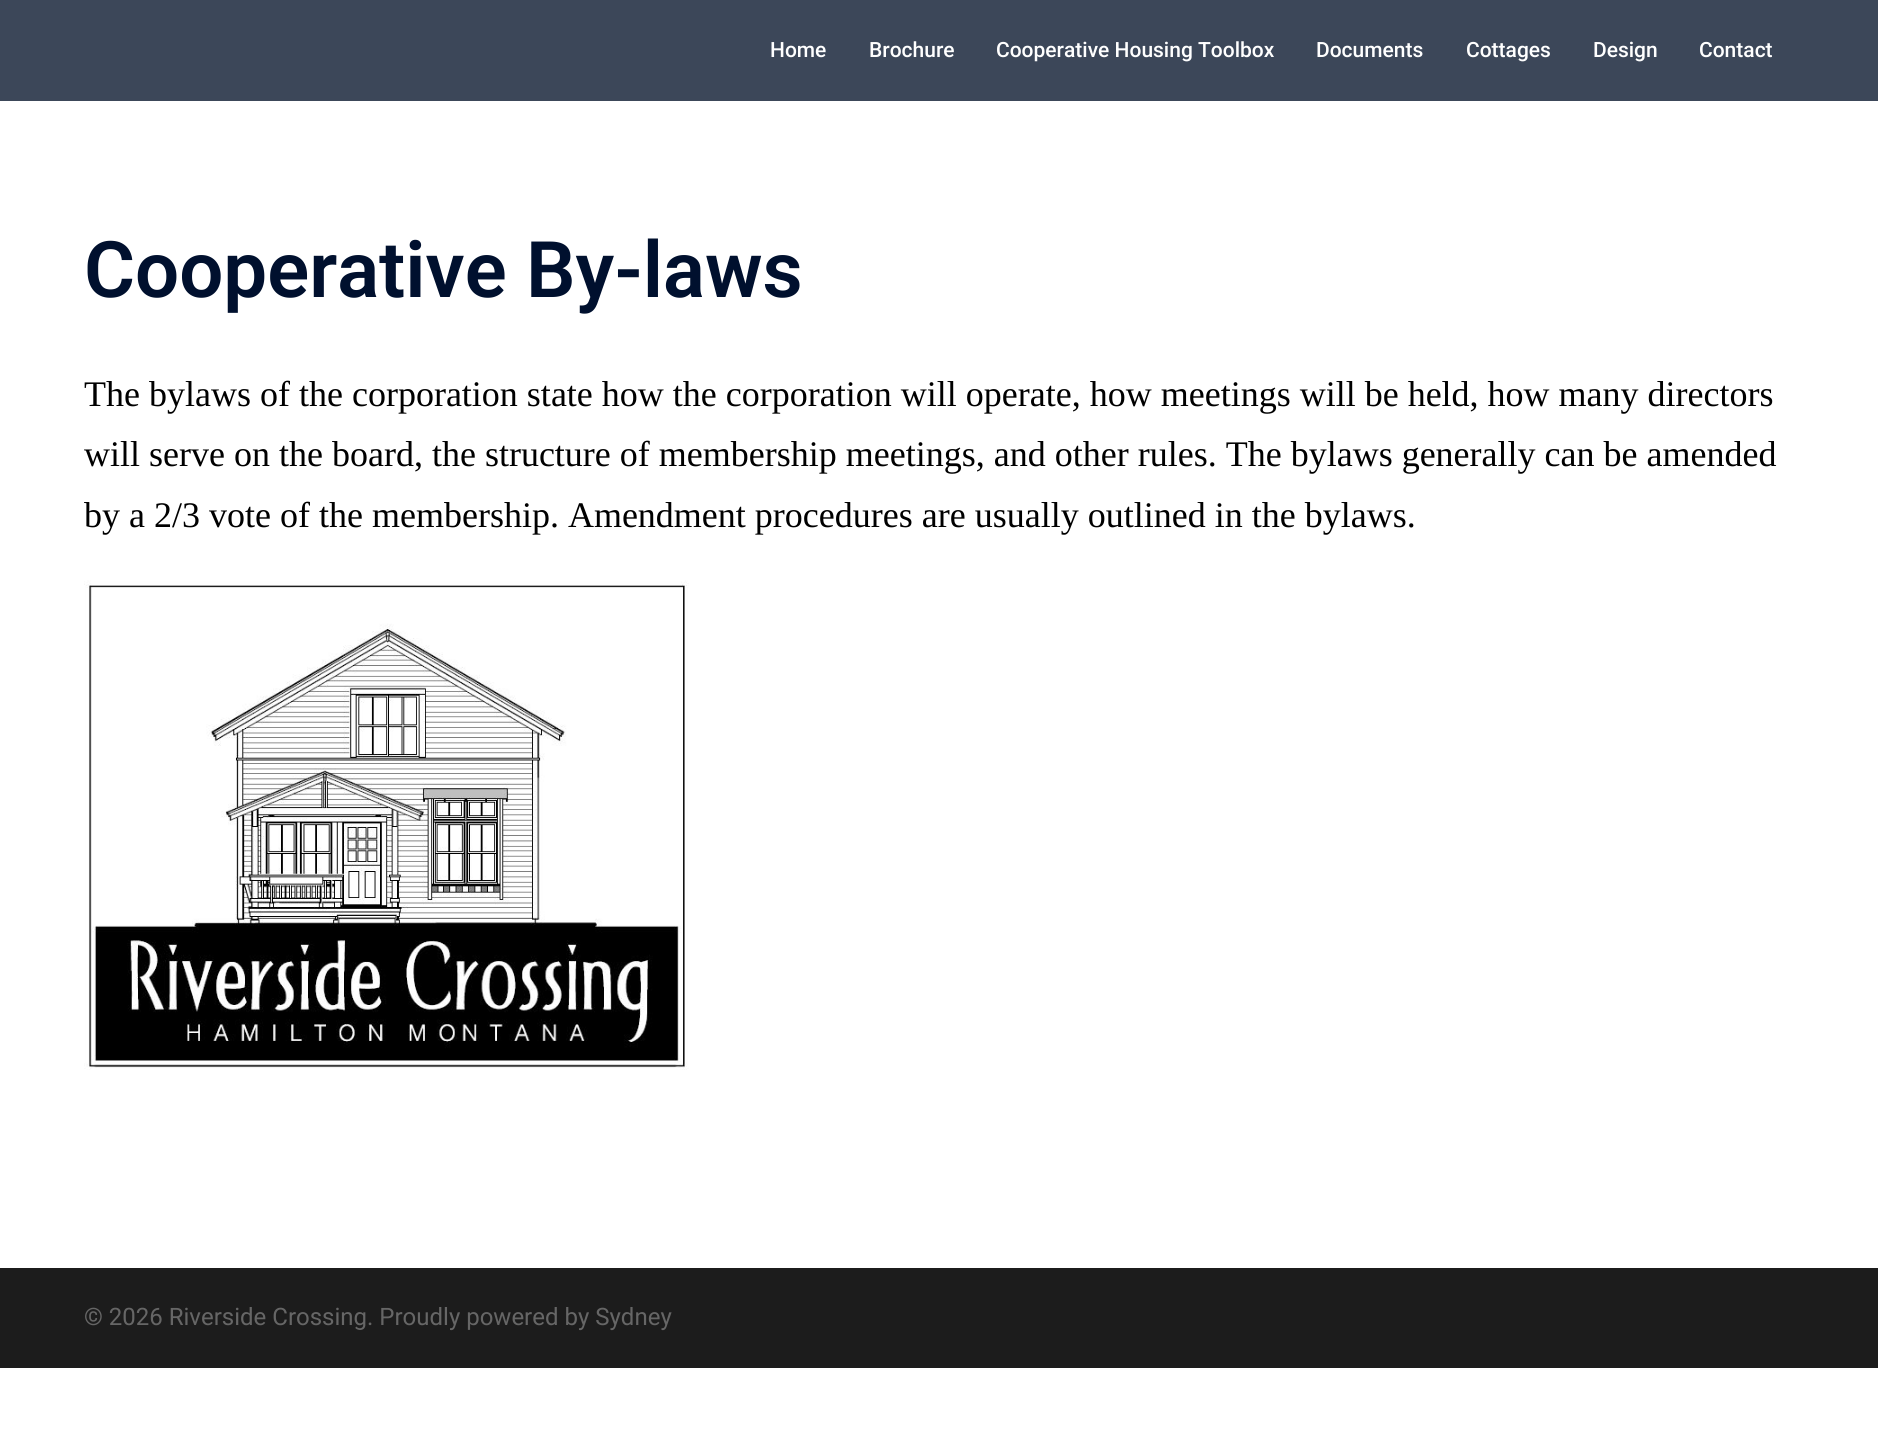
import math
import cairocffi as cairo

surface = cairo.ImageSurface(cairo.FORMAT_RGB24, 1878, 1447)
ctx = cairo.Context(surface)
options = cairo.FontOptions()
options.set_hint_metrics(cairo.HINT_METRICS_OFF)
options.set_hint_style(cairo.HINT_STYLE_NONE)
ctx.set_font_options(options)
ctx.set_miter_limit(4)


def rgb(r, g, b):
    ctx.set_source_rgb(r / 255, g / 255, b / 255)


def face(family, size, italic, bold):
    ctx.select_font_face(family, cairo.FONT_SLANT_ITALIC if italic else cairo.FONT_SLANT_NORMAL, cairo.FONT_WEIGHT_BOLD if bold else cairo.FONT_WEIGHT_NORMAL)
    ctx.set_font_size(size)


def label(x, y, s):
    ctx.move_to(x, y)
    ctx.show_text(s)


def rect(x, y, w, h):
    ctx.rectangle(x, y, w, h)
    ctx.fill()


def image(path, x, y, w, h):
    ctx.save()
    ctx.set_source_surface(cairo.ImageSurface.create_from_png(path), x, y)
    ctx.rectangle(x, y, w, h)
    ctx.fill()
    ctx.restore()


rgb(255, 255, 255)
ctx.paint()
rgb(60, 71, 89)
rect(0, 0, 1878, 101)
face('Roboto Medium', 21, 0, 0)
rgb(255, 255, 255)
label(770, 57, 'Home')
label(869, 57, 'Brochure')
label(996, 57, 'Cooperative Housing Toolbox')
label(1316, 57, 'Documents')
label(1466, 57, 'Cottages')
label(1593, 57, 'Design')
label(1699, 57, 'Contact')
face('Roboto SemiBold', 78, 0, 0)
rgb(0, 16, 46)
label(84, 297, 'Cooperative By-laws')
face('Liberation Serif', 36, 0, 0)
rgb(0, 0, 0)
label(84, 406, 'The bylaws of the corporation state how the corporation will operate, how meetings will be held, how many directors')
label(84, 466, 'will serve on the board, the structure of membership meetings, and other rules. The bylaws generally can be amended')
label(84, 527, 'by a 2/3 vote of the membership. Amendment procedures are usually outlined in the bylaws.')
image('image0.png', 84, 580, 605, 490)
rgb(28, 28, 28)
rect(0, 1268, 1878, 100)
face('Roboto', 24, 0, 0)
rgb(102, 102, 102)
label(84, 1325, '© 2026 Riverside Crossing. Proudly powered by Sydney')
surface.write_to_png('render.png')
